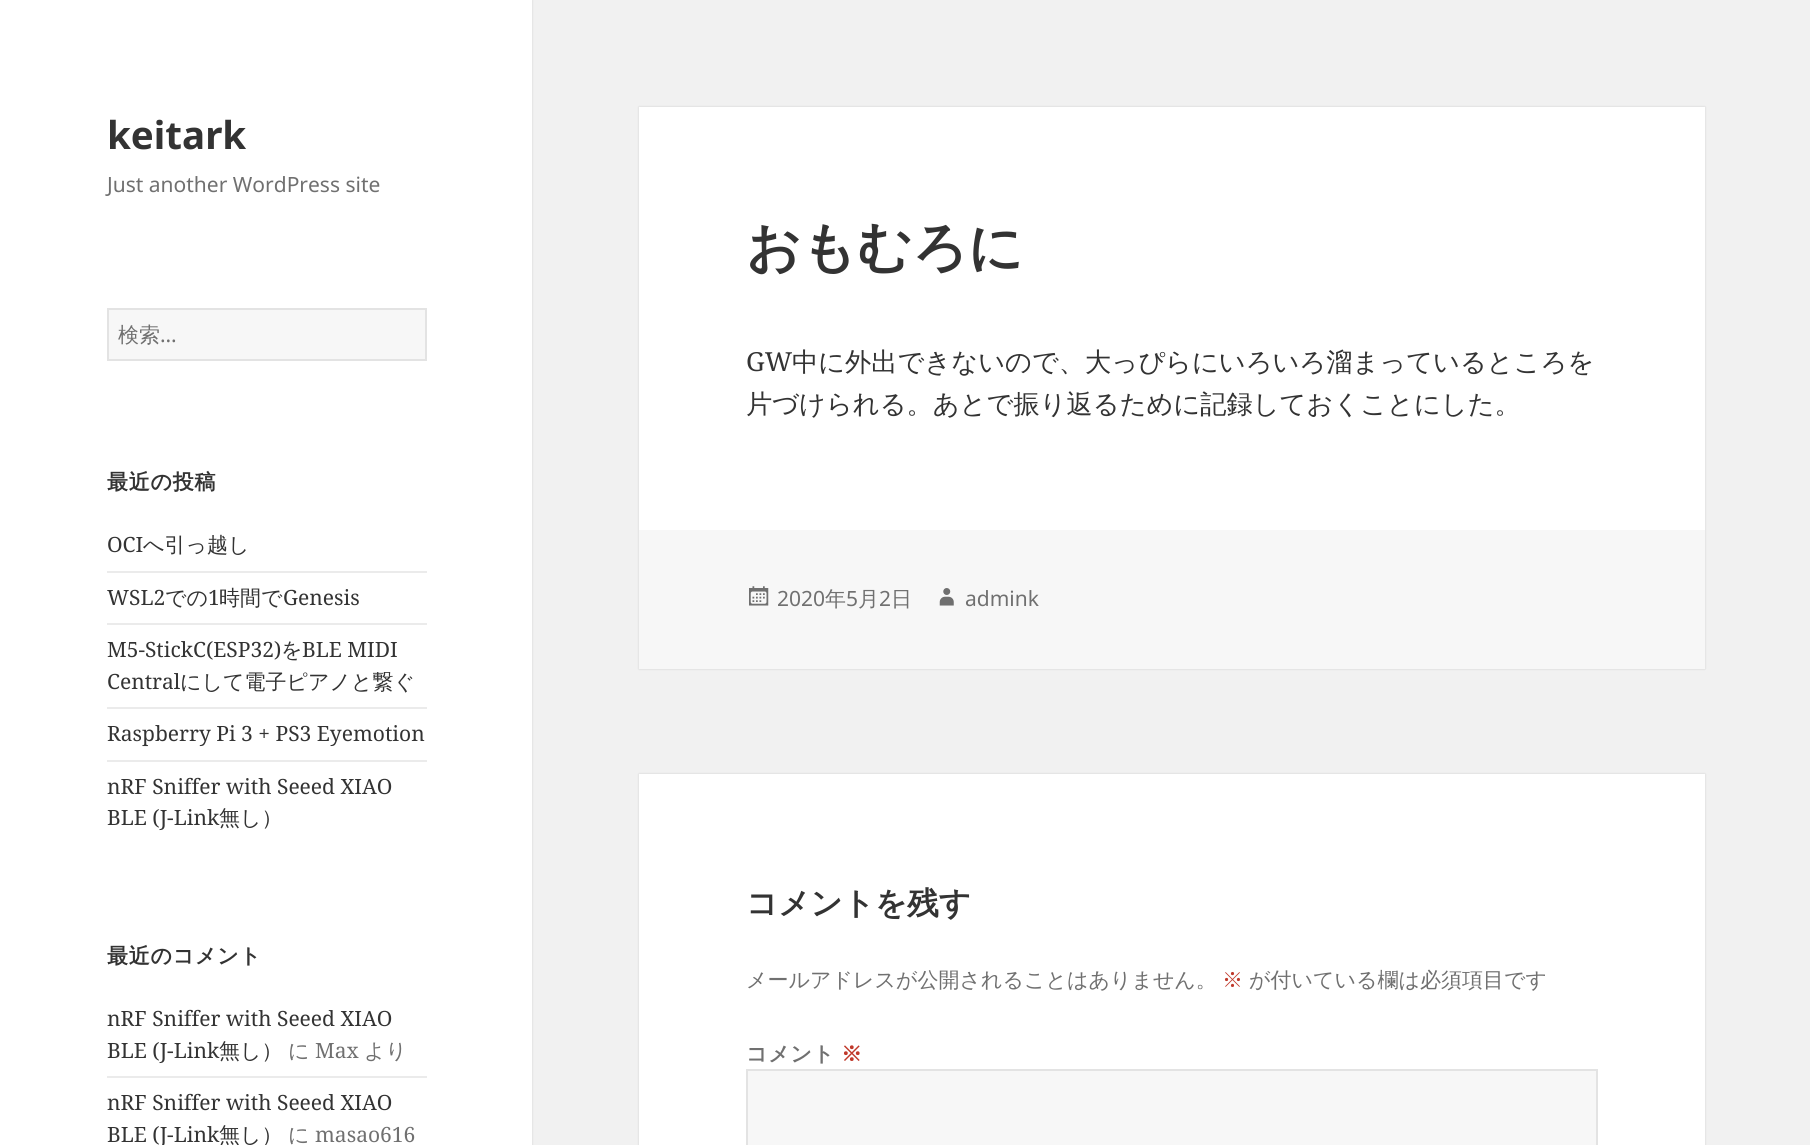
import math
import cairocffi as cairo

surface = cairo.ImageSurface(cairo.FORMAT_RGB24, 1810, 1145)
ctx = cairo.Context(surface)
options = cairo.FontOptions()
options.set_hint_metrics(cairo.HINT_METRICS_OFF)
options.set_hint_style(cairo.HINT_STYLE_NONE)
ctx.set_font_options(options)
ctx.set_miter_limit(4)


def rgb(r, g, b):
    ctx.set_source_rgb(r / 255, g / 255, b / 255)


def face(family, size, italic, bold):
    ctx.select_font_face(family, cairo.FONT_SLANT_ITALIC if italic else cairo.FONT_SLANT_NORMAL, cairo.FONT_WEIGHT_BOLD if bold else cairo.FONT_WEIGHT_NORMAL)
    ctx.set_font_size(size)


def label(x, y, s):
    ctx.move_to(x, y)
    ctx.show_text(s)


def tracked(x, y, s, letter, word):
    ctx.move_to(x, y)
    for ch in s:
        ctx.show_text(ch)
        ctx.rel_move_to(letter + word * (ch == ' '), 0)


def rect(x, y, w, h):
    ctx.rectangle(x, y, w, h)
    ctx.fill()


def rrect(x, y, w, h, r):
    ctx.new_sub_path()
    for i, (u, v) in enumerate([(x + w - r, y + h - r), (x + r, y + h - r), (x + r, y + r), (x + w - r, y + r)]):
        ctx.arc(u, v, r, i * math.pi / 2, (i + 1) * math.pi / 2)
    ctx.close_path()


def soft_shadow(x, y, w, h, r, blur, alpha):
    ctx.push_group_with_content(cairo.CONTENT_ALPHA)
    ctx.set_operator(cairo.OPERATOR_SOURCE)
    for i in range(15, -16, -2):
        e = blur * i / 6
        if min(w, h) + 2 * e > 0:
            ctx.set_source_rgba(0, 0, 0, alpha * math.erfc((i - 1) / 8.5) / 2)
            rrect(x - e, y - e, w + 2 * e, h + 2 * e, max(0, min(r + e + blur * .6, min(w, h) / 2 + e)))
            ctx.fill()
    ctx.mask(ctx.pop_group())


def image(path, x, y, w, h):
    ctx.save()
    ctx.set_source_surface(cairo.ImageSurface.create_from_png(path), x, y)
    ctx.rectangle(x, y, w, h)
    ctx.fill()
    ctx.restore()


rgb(241, 241, 241)
ctx.paint()
rgb(0, 0, 0)
soft_shadow(0, 0, 532, 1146, 0, 1, 0.15)
rgb(255, 255, 255)
rect(0, 0, 532, 1145)
face('Noto Sans', 38.5, 0, 1)
rgb(51, 51, 51)
label(107, 149, 'keitark')
face('Noto Sans', 21, 0, 0)
rgb(112, 112, 112)
label(107, 192, 'Just another WordPress site')
rgb(247, 247, 247)
ctx.rectangle(108, 309, 318, 51)
ctx.fill_preserve()
rgb(227, 227, 227)
ctx.stroke()
face('WenQuanYi Zen Hei Medium', 21, 0, 0)
rgb(112, 112, 112)
label(118, 342, '検索')
face('Noto Sans', 21, 0, 0)
label(160, 342, '…')
face('WenQuanYi Zen Hei', 21, 0, 1)
rgb(51, 51, 51)
tracked(107, 489, '最近の投稿', 0.75, 0)
face('Noto Serif', 21, 0, 0)
label(107, 552, 'OCI')
face('WenQuanYi Zen Hei Medium', 21, 0, 0)
label(143, 552, 'へ引っ越し')
rgb(235, 235, 235)
rect(107, 571, 320, 2)
face('Noto Serif', 21, 0, 0)
rgb(51, 51, 51)
label(107, 605, 'WSL2')
face('WenQuanYi Zen Hei Medium', 21, 0, 0)
label(165, 605, 'での')
face('Noto Serif', 21, 0, 0)
label(208, 605, '1')
face('WenQuanYi Zen Hei Medium', 21, 0, 0)
label(219, 605, '時間で')
face('Noto Serif', 21, 0, 0)
label(283, 605, 'Genesis')
rgb(235, 235, 235)
rect(107, 623, 320, 2)
rgb(51, 51, 51)
label(107, 657, 'M5-StickC(ESP32)')
face('WenQuanYi Zen Hei Medium', 21, 0, 0)
label(281, 657, 'を')
face('Noto Serif', 21, 0, 0)
label(302, 657, 'BLE MIDI')
label(107, 689, 'Central')
face('WenQuanYi Zen Hei Medium', 21, 0, 0)
label(180, 689, 'にして電子ピアノと繋ぐ')
rgb(235, 235, 235)
rect(107, 707, 320, 2)
face('Noto Serif', 21, 0, 0)
rgb(51, 51, 51)
label(107, 741, 'Raspberry Pi 3 + PS3 Eyemotion')
rgb(235, 235, 235)
rect(107, 760, 320, 2)
rgb(51, 51, 51)
label(107, 794, 'nRF Sniffer with Seeed XIAO')
label(107, 825, 'BLE (J-Link')
face('WenQuanYi Zen Hei Medium', 21, 0, 0)
label(219, 825, '無し）')
face('WenQuanYi Zen Hei', 21, 0, 1)
tracked(107, 963, '最近のコメント', 0.75, 0)
face('Noto Serif', 21, 0, 0)
label(107, 1026, 'nRF Sniffer with Seeed XIAO')
label(107, 1058, 'BLE (J-Link')
face('WenQuanYi Zen Hei Medium', 21, 0, 0)
label(219, 1058, '無し）')
rgb(112, 112, 112)
label(288, 1058, 'に')
face('Noto Serif', 21, 0, 0)
label(315, 1058, 'Max')
face('WenQuanYi Zen Hei Medium', 21, 0, 0)
label(364, 1058, 'より')
rgb(235, 235, 235)
rect(107, 1076, 320, 2)
face('Noto Serif', 21, 0, 0)
rgb(51, 51, 51)
label(107, 1110, 'nRF Sniffer with Seeed XIAO')
label(107, 1142, 'BLE (J-Link')
face('WenQuanYi Zen Hei Medium', 21, 0, 0)
label(219, 1142, '無し）')
rgb(112, 112, 112)
label(288, 1142, 'に')
face('Noto Serif', 21, 0, 0)
label(315, 1142, 'masao616')
rgb(0, 0, 0)
soft_shadow(639, 107, 1066, 562, 0, 1, 0.15)
rgb(255, 255, 255)
rect(639, 107, 1066, 423)
face('WenQuanYi Zen Hei', 54.25, 0, 1)
rgb(51, 51, 51)
label(746, 266, 'おもむろに')
face('Noto Serif', 26.25, 0, 0)
label(746, 371, 'GW')
face('WenQuanYi Zen Hei Medium', 26.25, 0, 0)
label(792, 371, '中に外出できないので、大っぴらにいろいろ溜まっているところを')
label(746, 413, '片づけられる。あとで振り返るために記録しておくことにした。')
rgb(247, 247, 247)
rect(639, 530, 1066, 139)
image('image0.png', 749, 586, 20, 20)
face('Noto Sans', 21, 0, 0)
rgb(112, 112, 112)
label(777, 606, '2020')
face('WenQuanYi Zen Hei Medium', 21, 0, 0)
label(825, 606, '年')
face('Noto Sans', 21, 0, 0)
label(846, 606, '5')
face('WenQuanYi Zen Hei Medium', 21, 0, 0)
label(858, 606, '月')
face('Noto Sans', 21, 0, 0)
label(879, 606, '2')
face('WenQuanYi Zen Hei Medium', 21, 0, 0)
label(891, 606, '日')
image('image1.png', 939, 588, 15, 18)
face('Noto Sans', 21, 0, 0)
label(965, 606, 'admink')
rgb(0, 0, 0)
soft_shadow(639, 774, 1066, 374, 0, 1, 0.15)
rgb(255, 255, 255)
rect(639, 774, 1066, 371)
face('WenQuanYi Zen Hei', 31.5, 0, 1)
rgb(51, 51, 51)
label(746, 914, 'コメントを残す')
face('WenQuanYi Zen Hei Medium', 21, 0, 0)
rgb(112, 112, 112)
label(746, 987, 'メールアドレスが公開されることはありません。')
rgb(192, 57, 43)
label(1222, 987, '※')
rgb(112, 112, 112)
label(1249, 987, 'が付いている欄は必須項目です')
face('WenQuanYi Zen Hei', 21, 0, 1)
tracked(746, 1061, 'コメント', 0.75, 0)
rgb(192, 57, 43)
tracked(841, 1061, '※', 0.75, 0)
rgb(247, 247, 247)
ctx.rectangle(747, 1070, 850, 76)
ctx.fill_preserve()
rgb(227, 227, 227)
ctx.stroke()
surface.write_to_png('render.png')
